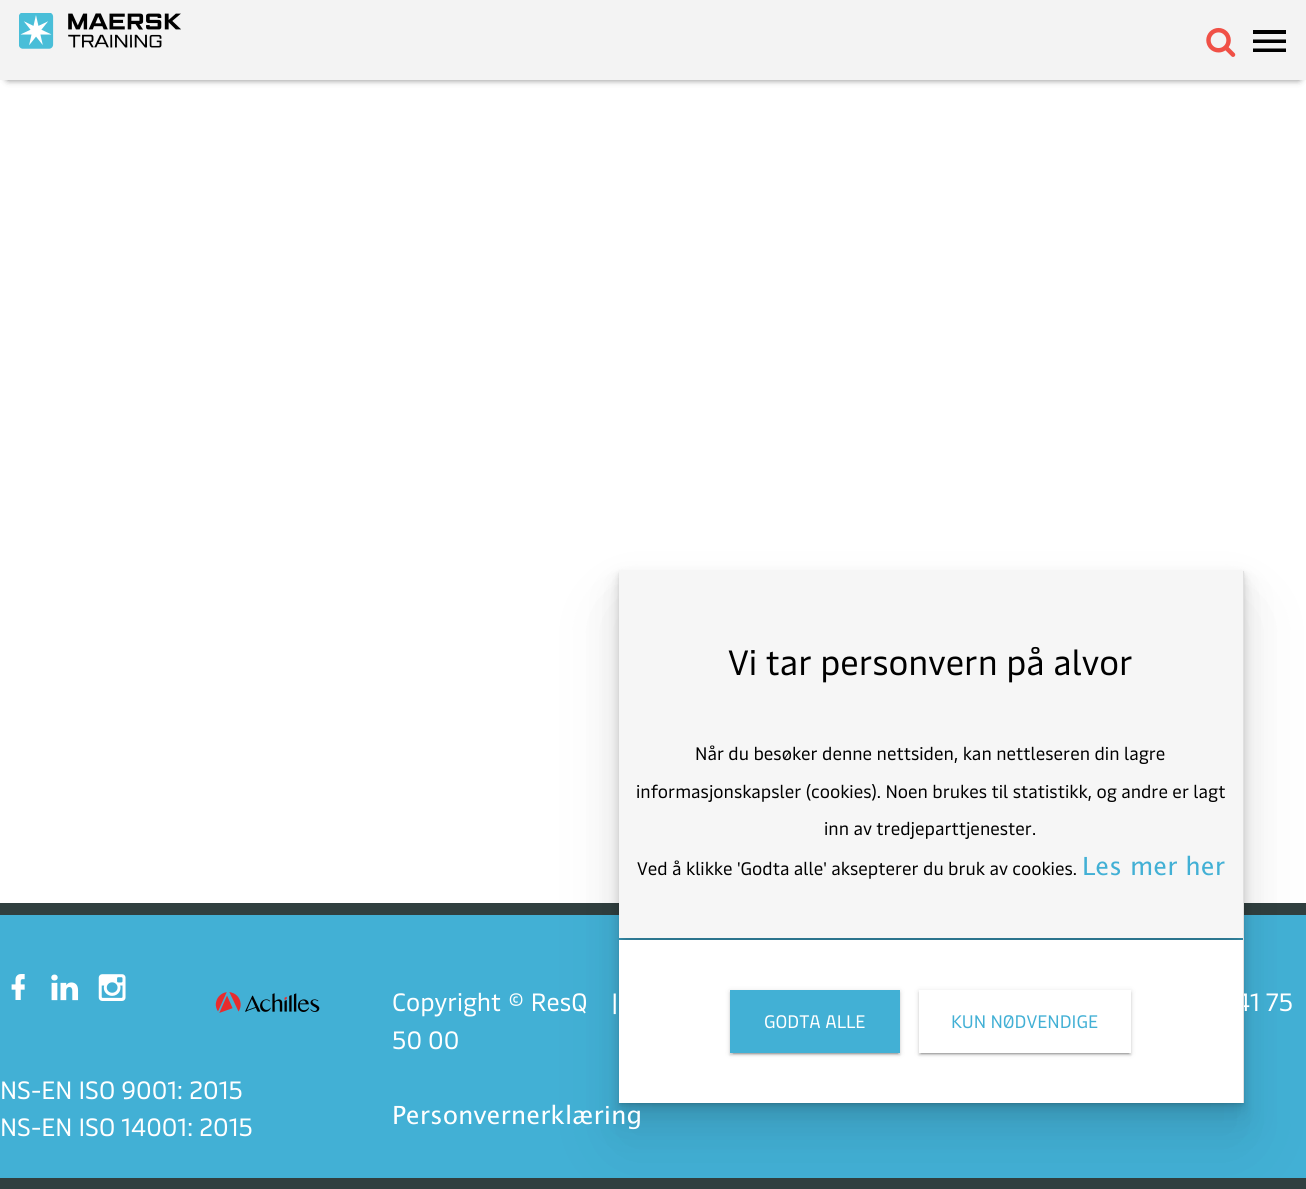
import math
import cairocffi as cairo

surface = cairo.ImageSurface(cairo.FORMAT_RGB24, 1306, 1189)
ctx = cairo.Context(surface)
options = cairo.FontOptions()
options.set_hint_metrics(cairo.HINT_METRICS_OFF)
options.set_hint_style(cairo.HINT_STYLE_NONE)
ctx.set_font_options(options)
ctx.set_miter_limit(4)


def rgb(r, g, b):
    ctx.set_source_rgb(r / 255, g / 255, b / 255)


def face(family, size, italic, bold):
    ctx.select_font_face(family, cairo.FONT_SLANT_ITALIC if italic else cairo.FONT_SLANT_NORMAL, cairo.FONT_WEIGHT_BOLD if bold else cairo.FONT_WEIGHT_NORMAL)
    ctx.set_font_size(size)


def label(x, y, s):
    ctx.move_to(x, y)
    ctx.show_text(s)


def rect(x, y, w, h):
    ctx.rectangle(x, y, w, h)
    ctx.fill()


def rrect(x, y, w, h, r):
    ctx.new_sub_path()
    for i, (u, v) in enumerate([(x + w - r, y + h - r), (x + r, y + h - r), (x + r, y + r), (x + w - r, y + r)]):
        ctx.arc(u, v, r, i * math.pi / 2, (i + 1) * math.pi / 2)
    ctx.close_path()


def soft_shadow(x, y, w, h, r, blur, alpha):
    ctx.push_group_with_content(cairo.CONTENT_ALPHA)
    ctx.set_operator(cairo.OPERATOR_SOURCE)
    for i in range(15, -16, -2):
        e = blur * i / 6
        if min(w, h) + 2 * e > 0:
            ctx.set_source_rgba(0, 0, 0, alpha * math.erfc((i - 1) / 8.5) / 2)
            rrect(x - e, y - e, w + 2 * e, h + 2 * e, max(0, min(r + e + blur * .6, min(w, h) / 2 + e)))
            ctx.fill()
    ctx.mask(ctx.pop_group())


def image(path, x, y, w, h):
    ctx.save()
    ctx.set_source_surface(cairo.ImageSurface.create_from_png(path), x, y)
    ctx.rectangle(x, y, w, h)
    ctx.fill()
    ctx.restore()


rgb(255, 255, 255)
ctx.paint()
rgb(34, 34, 34)
soft_shadow(8, 13, 1291, 65, 0, 4, 1)
rgb(243, 243, 243)
rect(0, 0, 1306, 80)
image('image0.png', 19, 13, 162, 36)
image('image1.png', 1206, 27, 30, 30)
rgb(0, 0, 0)
ctx.new_path()
ctx.move_to(1253, 30)
ctx.line_to(1286, 30)
ctx.line_to(1286, 34)
ctx.line_to(1253, 34)
ctx.close_path()
ctx.move_to(1253, 39.5)
ctx.line_to(1286, 39.5)
ctx.line_to(1286, 43)
ctx.line_to(1253, 43)
ctx.close_path()
ctx.move_to(1253, 48.5)
ctx.line_to(1286, 48.5)
ctx.line_to(1286, 52)
ctx.line_to(1253, 52)
ctx.close_path()
ctx.fill()
rgb(48, 63, 63)
rect(0, 903, 1306, 286)
rgb(66, 176, 213)
rect(0, 915, 1306, 263)
rgb(0, 0, 0)
soft_shadow(619, 611, 625, 532, 0, 40, 0.07)
soft_shadow(619, 591, 625, 532, 0, 20, 0.07)
soft_shadow(619, 581, 625, 532, 0, 10, 0.07)
soft_shadow(619, 576, 625, 532, 0, 5, 0.07)
soft_shadow(619, 574, 625, 531, 0, 2.5, 0.07)
soft_shadow(619, 573, 625, 531, 0, 1, 0.07)
face('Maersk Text', 25, 0, 0)
rgb(255, 255, 255)
label(1235, 1011, '41 75')
rgb(224, 224, 224)
rect(1243, 571, 1, 532)
rgb(246, 246, 246)
rect(619, 571, 624, 367)
face('Maersk Text', 35, 0, 0)
rgb(0, 0, 0)
label(728, 675, 'Vi tar personvern på alvor')
face('Maersk Text', 18.1, 0, 0)
label(695, 760, 'Når du besøker denne nettsiden, kan nettleseren din lagre')
label(636, 798, 'informasjonskapsler (cookies). Noen brukes til statistikk, og andre er lagt')
label(824, 835, 'inn av tredjeparttjenester.')
label(637, 875, 'Ved å klikke \'Godta alle\' aksepterer du bruk av cookies.')
face('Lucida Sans', 25, 0, 0)
rgb(66, 176, 213)
label(1082, 875, 'Les mer her')
rgb(255, 255, 255)
rect(619, 940, 624, 163)
rgb(0, 0, 0)
soft_shadow(730, 991, 170, 63, 0, 3, 0.12)
soft_shadow(733, 996, 165, 58, 0, 0.5, 0.2)
soft_shadow(730, 993, 170, 62, 0, 1, 0.14)
rgb(66, 176, 213)
rect(730, 990, 170, 63)
face('Maersk Text', 18.1, 0, 0)
rgb(255, 255, 255)
label(764, 1028, 'GODTA ALLE')
ctx.save()
ctx.set_fill_rule(cairo.FILL_RULE_EVEN_ODD)
ctx.new_path()
ctx.move_to(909, 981)
ctx.line_to(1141, 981)
ctx.line_to(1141, 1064)
ctx.line_to(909, 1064)
ctx.close_path()
ctx.move_to(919, 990)
ctx.line_to(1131, 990)
ctx.line_to(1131, 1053)
ctx.line_to(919, 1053)
ctx.close_path()
ctx.clip()
rgb(0, 0, 0)
soft_shadow(919, 991, 212, 63, 0, 3, 0.12)
ctx.restore()
ctx.save()
ctx.set_fill_rule(cairo.FILL_RULE_EVEN_ODD)
ctx.new_path()
ctx.move_to(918, 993)
ctx.line_to(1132, 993)
ctx.line_to(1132, 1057)
ctx.line_to(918, 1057)
ctx.close_path()
ctx.move_to(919, 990)
ctx.line_to(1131, 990)
ctx.line_to(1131, 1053)
ctx.line_to(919, 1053)
ctx.close_path()
ctx.clip()
rgb(0, 0, 0)
soft_shadow(921, 996, 208, 58, 0, 0.5, 0.2)
ctx.restore()
ctx.save()
ctx.set_fill_rule(cairo.FILL_RULE_EVEN_ODD)
ctx.new_path()
ctx.move_to(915, 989)
ctx.line_to(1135, 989)
ctx.line_to(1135, 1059)
ctx.line_to(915, 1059)
ctx.close_path()
ctx.move_to(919, 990)
ctx.line_to(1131, 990)
ctx.line_to(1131, 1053)
ctx.line_to(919, 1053)
ctx.close_path()
ctx.clip()
rgb(0, 0, 0)
soft_shadow(919, 993, 212, 62, 0, 1, 0.14)
ctx.restore()
rgb(66, 176, 213)
label(951, 1028, 'KUN NØDVENDIGE')
image('image2.png', 11, 974, 14, 26)
image('image3.png', 51, 974, 28, 27)
image('image4.png', 98, 974, 28, 27)
image('image5.png', 215, 992, 105, 21)
face('Maersk Text', 25, 0, 0)
rgb(255, 255, 255)
label(0, 1099, 'NS-EN ISO 9001: 2015')
label(0, 1136, 'NS-EN ISO 14001: 2015')
label(392, 1011, 'Copyright © ResQ    |')
label(392, 1049, '50 00')
face('Lucida Sans', 25, 0, 0)
label(392, 1124, 'Personvernerklæring')
surface.write_to_png('render.png')
